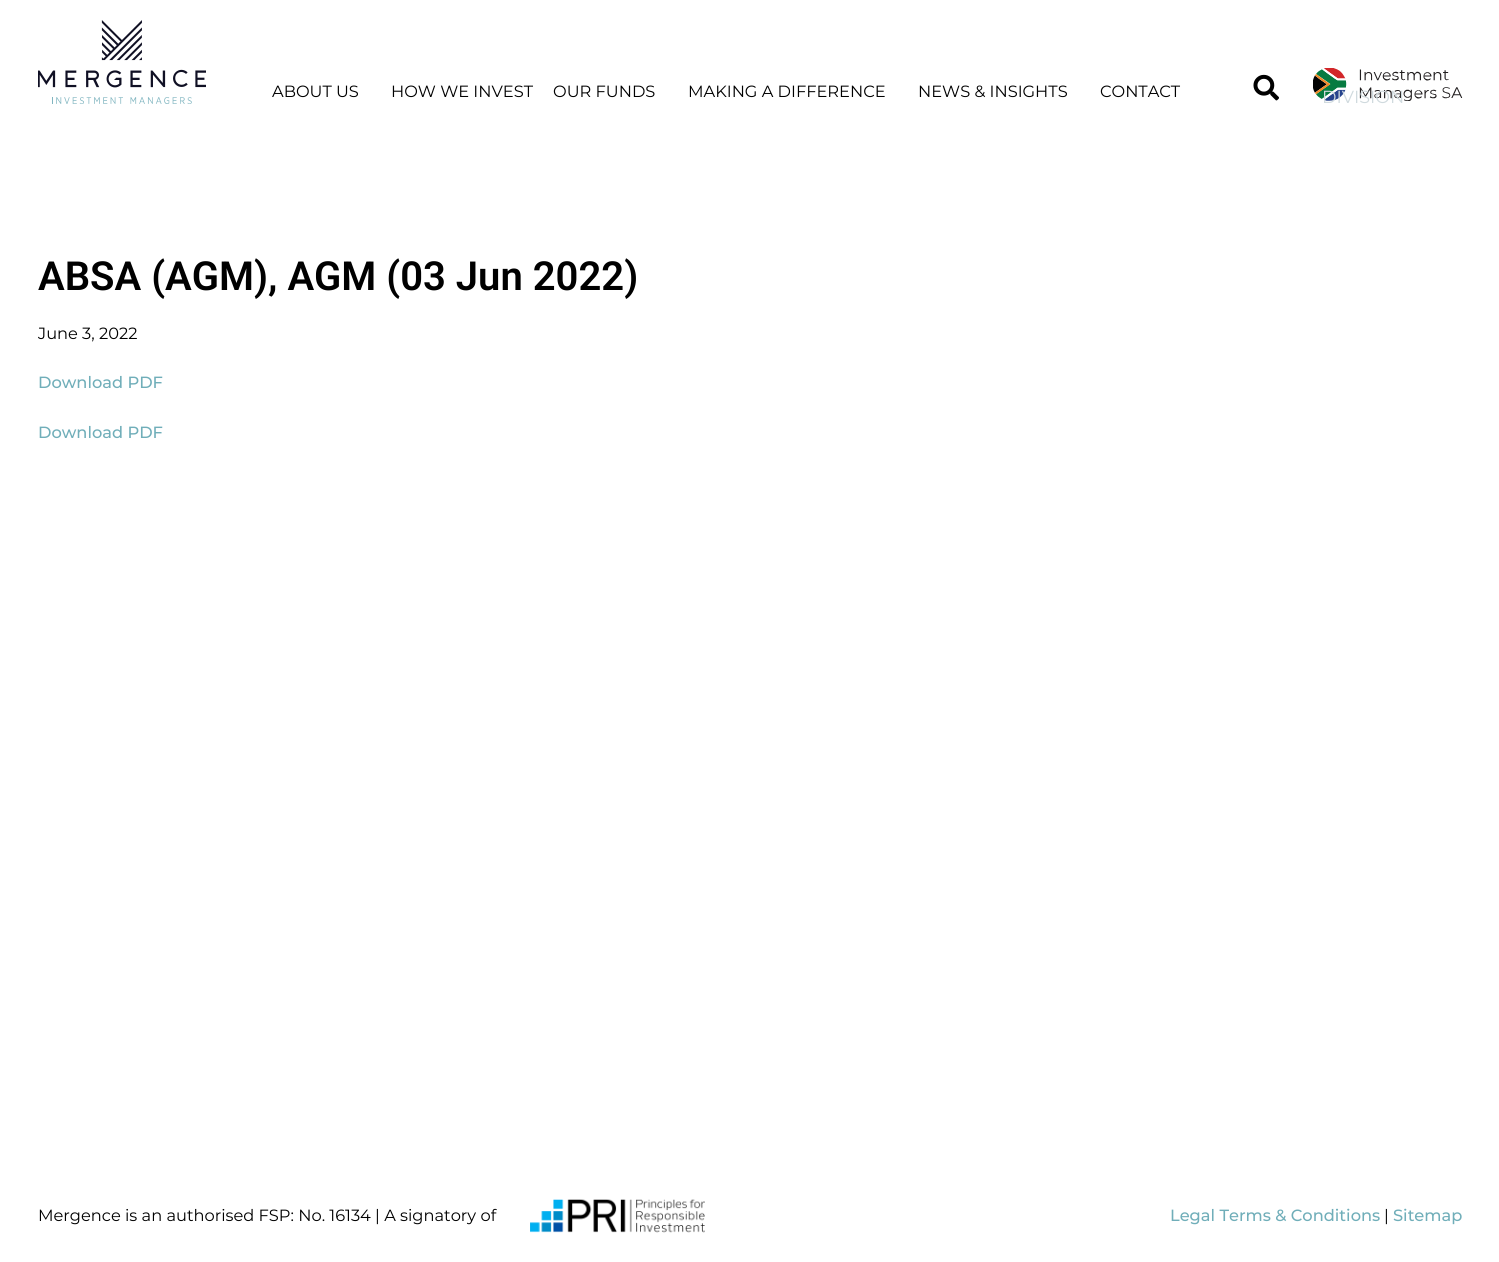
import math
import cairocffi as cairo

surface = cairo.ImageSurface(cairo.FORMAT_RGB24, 1499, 1262)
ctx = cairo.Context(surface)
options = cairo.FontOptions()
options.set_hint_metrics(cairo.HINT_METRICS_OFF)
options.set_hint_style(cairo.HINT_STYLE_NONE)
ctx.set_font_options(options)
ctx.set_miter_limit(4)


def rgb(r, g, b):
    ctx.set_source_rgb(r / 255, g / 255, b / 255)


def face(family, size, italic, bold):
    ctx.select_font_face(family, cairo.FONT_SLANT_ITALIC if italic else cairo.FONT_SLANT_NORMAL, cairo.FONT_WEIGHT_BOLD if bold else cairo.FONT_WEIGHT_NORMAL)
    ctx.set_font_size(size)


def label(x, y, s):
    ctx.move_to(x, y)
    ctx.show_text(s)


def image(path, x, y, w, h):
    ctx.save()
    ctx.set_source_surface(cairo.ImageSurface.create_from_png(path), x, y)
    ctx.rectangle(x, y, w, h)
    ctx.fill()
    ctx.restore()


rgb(255, 255, 255)
ctx.paint()
image('image0.png', 38, 20, 168, 84)
face('Montserrat', 16.25, 0, 0)
rgb(0, 0, 0)
label(272, 97, 'ABOUT US')
label(391, 97, 'HOW WE INVEST')
label(553, 97, 'OUR FUNDS')
label(688, 97, 'MAKING A DIFFERENCE')
label(918, 97, 'NEWS & INSIGHTS')
label(1100, 97, 'CONTACT')
image('image1.png', 1253, 74, 26, 27)
image('image2.png', 1313, 68, 150, 33)
face('Montserrat', 17.5, 0, 0)
rgb(208, 218, 222)
label(1322, 103, 'DIVISION')
face('Roboto SemiBold', 40, 0, 0)
rgb(0, 0, 0)
label(38, 290, 'ABSA (AGM), AGM (03 Jun 2022)')
face('Montserrat', 16.25, 0, 0)
label(38, 339, 'June 3, 2022')
face('Montserrat Medium', 16.25, 0, 0)
rgb(112, 174, 185)
label(38, 388, 'Download PDF')
label(38, 438, 'Download PDF')
face('Montserrat', 16.25, 0, 0)
rgb(0, 0, 0)
label(38, 1221, 'Mergence is an authorised FSP: No. 16134 | A signatory of')
image('image3.png', 530, 1199, 175, 34)
face('Montserrat Medium', 16.25, 0, 0)
rgb(112, 174, 185)
label(1170, 1221, 'Legal Terms & Conditions')
face('Montserrat', 16.25, 0, 0)
rgb(0, 0, 0)
label(1384, 1221, '|')
face('Montserrat Medium', 16.25, 0, 0)
rgb(112, 174, 185)
label(1393, 1221, 'Sitemap')
surface.write_to_png('render.png')
